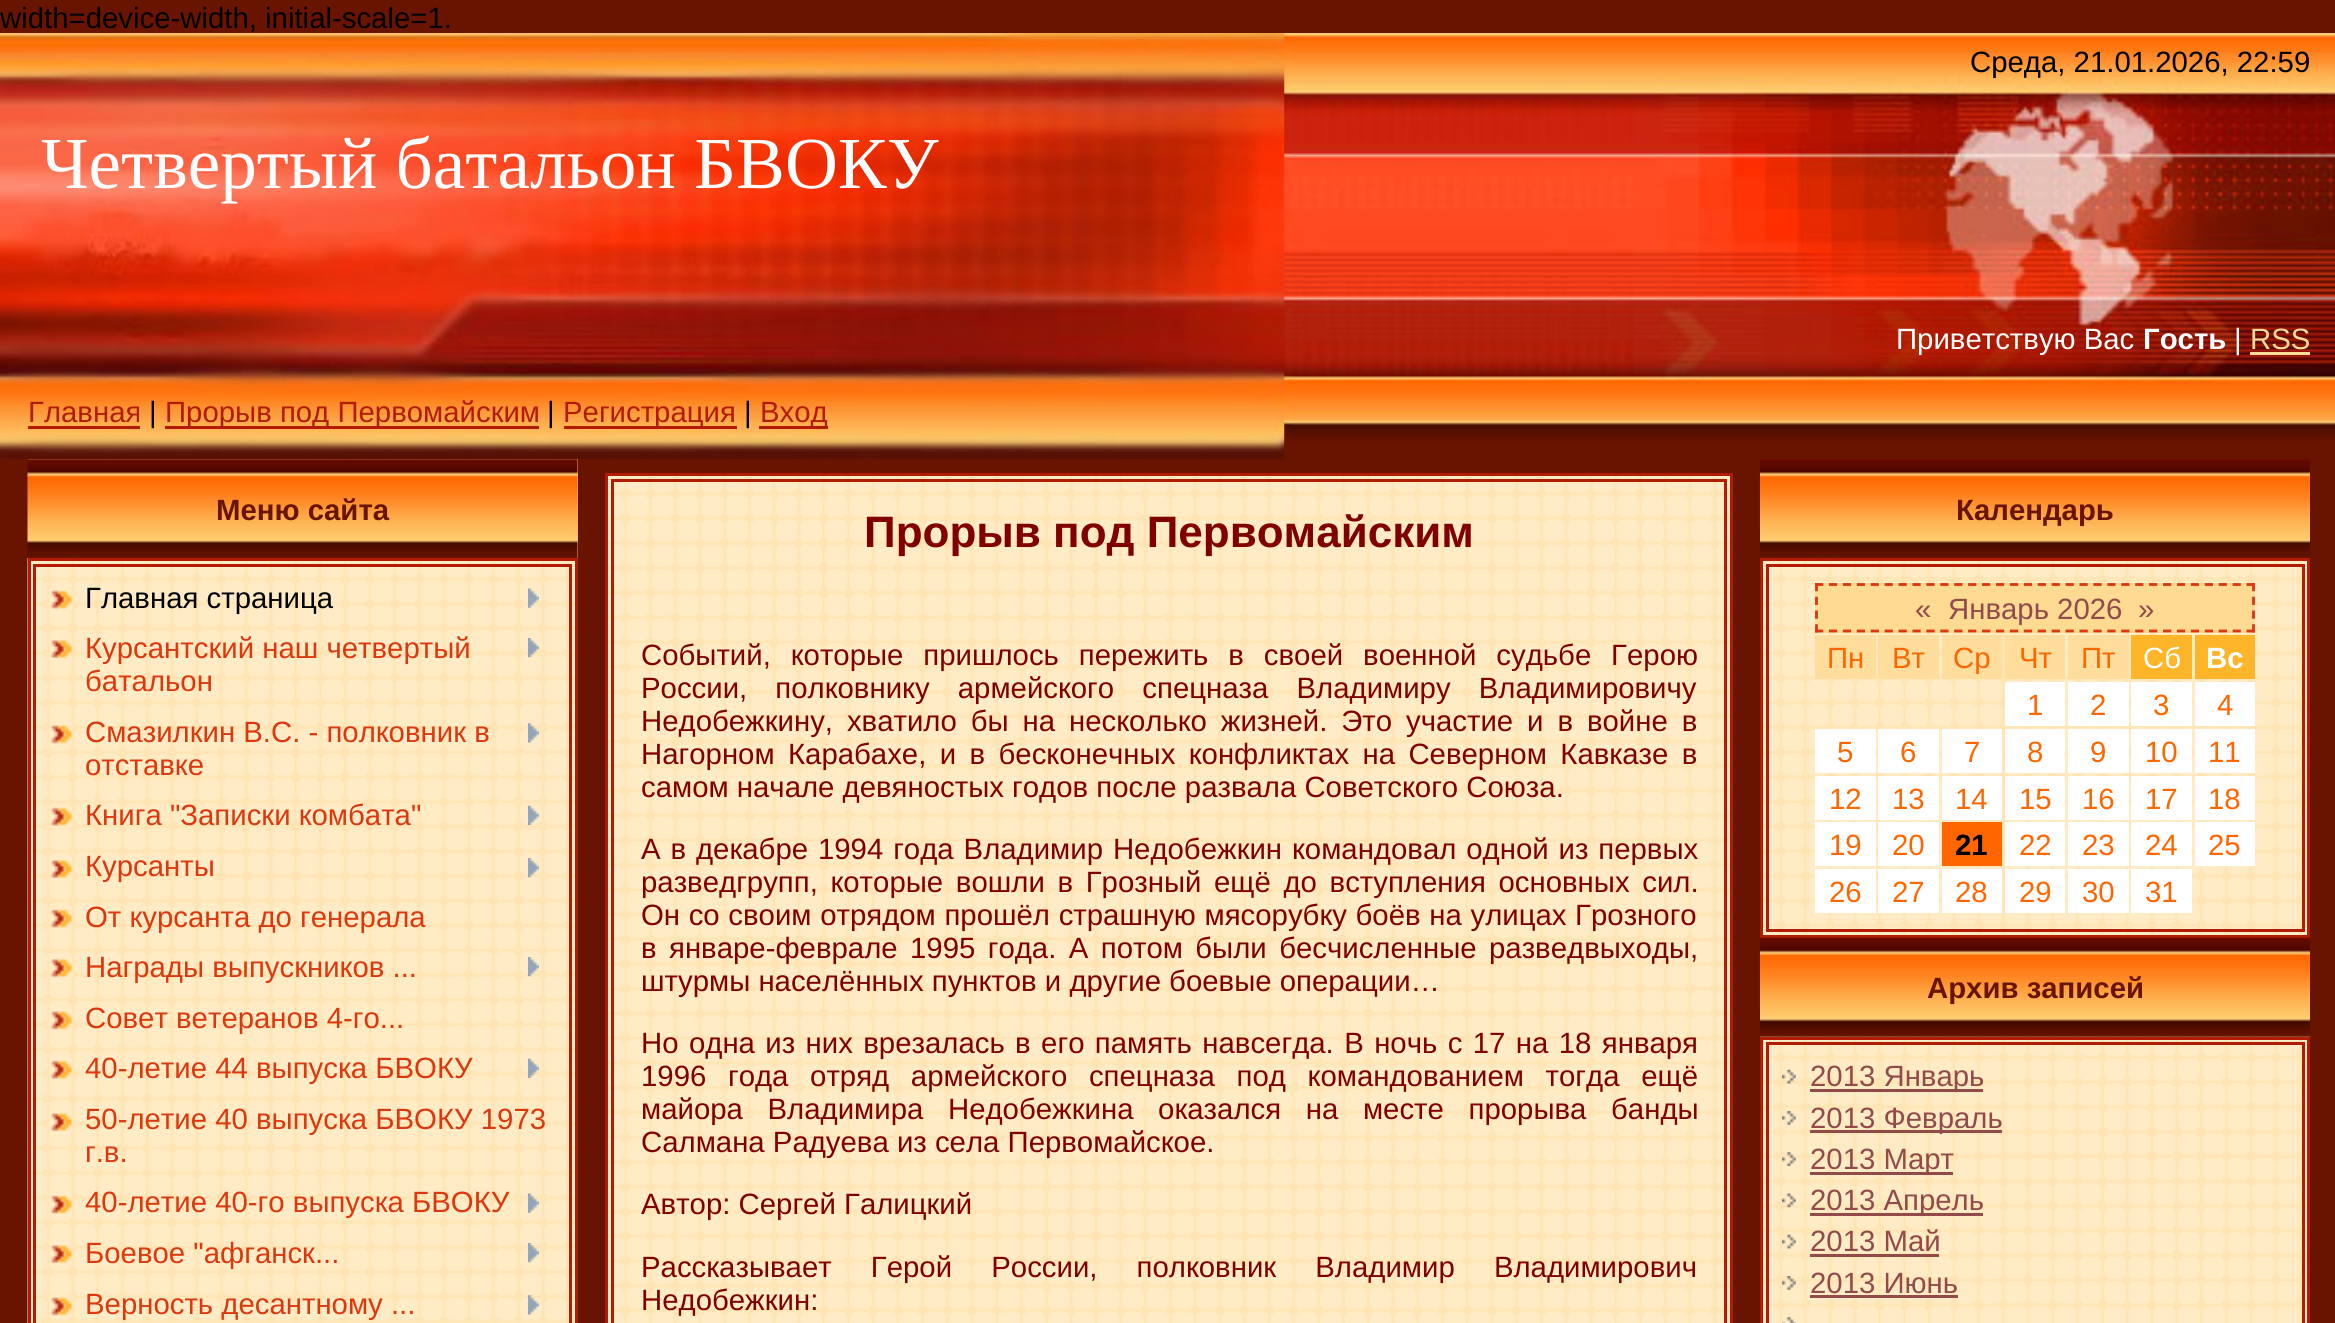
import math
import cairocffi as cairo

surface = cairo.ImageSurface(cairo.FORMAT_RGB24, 2335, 1323)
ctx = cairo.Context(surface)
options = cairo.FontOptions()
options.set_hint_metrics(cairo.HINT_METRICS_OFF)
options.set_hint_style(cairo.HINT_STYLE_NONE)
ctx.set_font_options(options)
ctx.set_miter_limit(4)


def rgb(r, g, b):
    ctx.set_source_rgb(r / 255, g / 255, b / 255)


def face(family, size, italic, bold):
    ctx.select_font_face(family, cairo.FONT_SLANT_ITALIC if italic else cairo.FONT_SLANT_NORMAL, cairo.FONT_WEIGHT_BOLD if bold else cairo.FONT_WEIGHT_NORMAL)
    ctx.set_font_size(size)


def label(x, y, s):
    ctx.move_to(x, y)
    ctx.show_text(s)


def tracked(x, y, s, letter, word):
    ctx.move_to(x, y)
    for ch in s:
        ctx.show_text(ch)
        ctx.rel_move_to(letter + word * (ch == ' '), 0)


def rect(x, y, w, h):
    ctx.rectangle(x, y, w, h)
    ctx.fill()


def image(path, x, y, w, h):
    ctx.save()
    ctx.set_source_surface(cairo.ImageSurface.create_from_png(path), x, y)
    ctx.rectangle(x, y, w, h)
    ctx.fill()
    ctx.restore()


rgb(105, 20, 0)
ctx.paint()
face('Liberation Sans', 29.35, 0, 0)
rgb(0, 0, 0)
label(0, 28, 'width=device-width, initial-scale=1.')
image('image0.png', 1284, 33, 9, 426)
image('image1.png', 0, 33, 1285, 427)
face('Liberation Serif', 73.25, 0, 0)
rgb(255, 255, 255)
label(41, 188, 'Четвертый батальон БВОКУ')
face('Liberation Sans', 29.35, 0, 0)
rgb(178, 27, 4)
label(28, 422, 'Главная')
rect(28, 426, 112, 3)
rgb(0, 0, 0)
label(149, 422, '|')
rgb(178, 27, 4)
rect(165, 426, 374, 3)
label(165, 422, 'Прорыв под Первомайским')
rgb(0, 0, 0)
label(547, 422, '|')
rgb(178, 27, 4)
rect(564, 426, 173, 3)
label(563, 422, 'Регистрация')
rgb(0, 0, 0)
label(744, 422, '|')
rgb(178, 27, 4)
rect(759, 426, 69, 3)
label(760, 422, 'Вход')
image('image2.png', 1292, 33, 1043, 426)
rgb(0, 0, 0)
label(1970, 72, 'Среда, 21.01.2026, 22:59')
rgb(255, 255, 255)
label(1896, 349, 'Приветствую Вас')
face('Liberation Sans', 29.35, 0, 1)
label(2143, 349, 'Гость')
face('Liberation Sans', 29.35, 0, 0)
label(2234, 349, '|')
rgb(255, 220, 153)
label(2250, 349, 'RSS')
rect(2250, 352, 60, 3)
rgb(255, 172, 76)
rect(28, 459, 550, 99)
image('image3.png', 27, 459, 551, 99)
face('Liberation Sans', 29.35, 0, 1)
rgb(105, 20, 0)
label(216, 520, 'Меню сайта')
image('image4.png', 27, 558, 548, 765)
ctx.rectangle(29.5, 559.5, 547, 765)
rgb(178, 27, 4)
ctx.set_line_width(3)
ctx.stroke()
ctx.rectangle(34.5, 565.5, 536, 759)
ctx.stroke()
image('image5.png', 49, 589, 23, 21)
face('Liberation Sans', 29.35, 0, 0)
rgb(0, 0, 0)
label(85, 608, 'Главная страница')
image('image6.png', 528, 588, 11, 20)
image('image7.png', 49, 638, 23, 22)
rgb(220, 55, 13)
label(85, 658, 'Курсантский наш четвертый')
image('image8.png', 528, 638, 11, 20)
label(85, 691, 'батальон')
image('image9.png', 49, 723, 23, 22)
label(85, 742, 'Смазилкин В.С. - полковник в')
image('image10.png', 528, 723, 11, 20)
label(85, 775, 'отставке')
image('image11.png', 49, 806, 23, 22)
label(85, 825, 'Книга "Записки комбата"')
image('image12.png', 528, 805, 11, 20)
image('image13.png', 49, 858, 23, 22)
label(85, 876, 'Курсанты')
image('image14.png', 528, 858, 11, 20)
image('image15.png', 49, 908, 23, 22)
label(85, 927, 'От курсанта до генерала')
image('image13.png', 49, 957, 23, 22)
label(85, 977, 'Награды выпускников ...')
image('image14.png', 528, 957, 11, 20)
image('image16.png', 49, 1010, 23, 21)
label(85, 1028, 'Совет ветеранов 4-го...')
image('image17.png', 49, 1059, 23, 21)
label(85, 1078, '40-летие 44 выпуска БВОКУ')
image('image18.png', 528, 1058, 11, 20)
image('image19.png', 49, 1111, 23, 22)
label(85, 1129, '50-летие 40 выпуска БВОКУ 1973')
label(85, 1162, 'г.в.')
image('image20.png', 49, 1193, 23, 22)
label(85, 1212, '40-летие 40-го выпуска БВОКУ')
image('image21.png', 528, 1193, 11, 20)
image('image22.png', 49, 1243, 23, 22)
label(85, 1263, 'Боевое "афганск...')
image('image23.png', 528, 1243, 11, 20)
image('image24.png', 49, 1295, 23, 22)
label(85, 1314, 'Верность десантному ...')
image('image25.png', 528, 1295, 11, 20)
image('image26.png', 608, 476, 1122, 847)
ctx.rectangle(606.5, 474.5, 1125, 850)
rgb(178, 27, 4)
ctx.stroke()
ctx.rectangle(612.5, 480.5, 1113, 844)
ctx.stroke()
face('Liberation Sans', 44, 0, 1)
rgb(128, 0, 0)
label(864, 547, 'Прорыв под Первомайским')
face('Liberation Sans', 29.35, 0, 0)
tracked(641, 665, 'Событий, которые пришлось пережить в своей военной судьбе Герою', 0, 11.75)
tracked(641, 698, 'России, полковнику армейского спецназа Владимиру Владимировичу', 0, 20)
tracked(641, 731, 'Недобежкину, хватило бы на несколько жизней. Это участие и в войне в', 0, 5.75)
tracked(641, 764, 'Нагорном Карабахе, и в бесконечных конфликтах на Северном Кавказе в', 0, 5.25)
label(641, 797, 'самом начале девяностых годов после развала Советского Союза.')
tracked(641, 859, 'А в декабре 1994 года Владимир Недобежкин командовал одной из первых', 0, 1.75)
tracked(641, 892, 'разведгрупп, которые вошли в Грозный ещё до вступления основных сил.', 0, 4.5)
tracked(641, 925, 'Он со своим отрядом прошёл страшную мясорубку боёв на улицах Грозного', 0, 0.5)
tracked(641, 958, 'в январе-феврале 1995 года. А потом были бесчисленные разведвыходы,', 0, 4.25)
label(641, 991, 'штурмы населённых пунктов и другие боевые операции…')
tracked(641, 1053, 'Но одна из них врезалась в его память навсегда. В ночь с 17 на 18 января', 0, 2.25)
tracked(641, 1086, '1996 года отряд армейского спецназа под командованием тогда ещё', 0, 13.5)
tracked(641, 1119, 'майора Владимира Недобежкина оказался на месте прорыва банды', 0, 16.5)
label(641, 1152, 'Салмана Радуева из села Первомайское.')
label(641, 1214, 'Автор: Сергей Галицкий')
tracked(641, 1277, 'Рассказывает Герой России, полковник Владимир Владимирович', 0, 31)
label(641, 1310, 'Недобежкин:')
image('image27.png', 1760, 459, 550, 99)
face('Liberation Sans', 29.35, 0, 1)
rgb(105, 20, 0)
label(1956, 520, 'Календарь')
image('image28.png', 1763, 561, 544, 374)
ctx.rectangle(1761.5, 559.5, 547, 377)
rgb(178, 27, 4)
ctx.stroke()
ctx.rectangle(1767.5, 565.5, 536, 365)
ctx.stroke()
rgb(255, 218, 147)
rect(1815, 583, 440, 50)
ctx.new_path()
ctx.move_to(1815, 584.5)
ctx.line_to(2255, 584.5)
rgb(220, 55, 13)
ctx.set_line_width(2.8)
ctx.set_dash([8.25, 5.67])
ctx.stroke()
ctx.new_path()
ctx.move_to(2253.5, 583)
ctx.line_to(2253.5, 632.5)
ctx.set_dash([8.25, 5.5])
ctx.stroke()
ctx.new_path()
ctx.move_to(1815, 631)
ctx.line_to(2255, 631)
ctx.set_dash([8.25, 5.67])
ctx.stroke()
ctx.new_path()
ctx.move_to(1816.5, 583)
ctx.line_to(1816.5, 632.5)
ctx.set_dash([8.25, 5.5])
ctx.stroke()
face('Liberation Sans', 29.35, 0, 0)
rgb(147, 74, 74)
label(1915, 619, '«')
label(1948, 619, 'Январь 2026')
label(2138, 619, '»')
rgb(255, 222, 157)
rect(1815, 635, 61, 44)
rgb(255, 102, 0)
label(1827, 668, 'Пн')
rgb(255, 222, 157)
rect(1878, 635, 61, 44)
rgb(255, 102, 0)
label(1892, 668, 'Вт')
rgb(255, 222, 157)
rect(1942, 635, 60, 44)
rgb(255, 102, 0)
label(1953, 668, 'Ср')
rgb(255, 222, 157)
rect(2005, 635, 60, 44)
rgb(255, 102, 0)
label(2019, 668, 'Чт')
rgb(255, 222, 157)
rect(2068, 635, 61, 44)
rgb(255, 102, 0)
label(2081, 668, 'Пт')
rgb(255, 181, 41)
rect(2131, 635, 61, 44)
rgb(255, 255, 255)
label(2143, 668, 'Сб')
rgb(255, 181, 41)
rect(2195, 635, 60, 44)
face('Liberation Sans', 29.35, 0, 1)
rgb(255, 255, 255)
label(2206, 668, 'Вс')
rect(2005, 682, 60, 44)
face('Liberation Sans', 29.35, 0, 0)
rgb(255, 102, 0)
label(2027, 715, '1')
rgb(255, 255, 255)
rect(2068, 682, 61, 44)
rgb(255, 102, 0)
label(2090, 715, '2')
rgb(255, 255, 255)
rect(2131, 682, 61, 44)
rgb(255, 102, 0)
label(2153, 715, '3')
rgb(255, 255, 255)
rect(2195, 682, 60, 44)
rgb(255, 102, 0)
label(2217, 715, '4')
rgb(255, 255, 255)
rect(1815, 729, 61, 44)
rgb(255, 102, 0)
label(1837, 762, '5')
rgb(255, 255, 255)
rect(1878, 729, 61, 44)
rgb(255, 102, 0)
label(1900, 762, '6')
rgb(255, 255, 255)
rect(1942, 729, 60, 44)
rgb(255, 102, 0)
label(1964, 762, '7')
rgb(255, 255, 255)
rect(2005, 729, 60, 44)
rgb(255, 102, 0)
label(2027, 762, '8')
rgb(255, 255, 255)
rect(2068, 729, 61, 44)
rgb(255, 102, 0)
label(2090, 762, '9')
rgb(255, 255, 255)
rect(2131, 729, 61, 44)
rgb(255, 102, 0)
label(2145, 762, '10')
rgb(255, 255, 255)
rect(2195, 729, 60, 44)
rgb(255, 102, 0)
label(2208, 762, '11')
rgb(255, 255, 255)
rect(1815, 776, 61, 44)
rgb(255, 102, 0)
label(1829, 809, '12')
rgb(255, 255, 255)
rect(1878, 776, 61, 44)
rgb(255, 102, 0)
label(1892, 809, '13')
rgb(255, 255, 255)
rect(1942, 776, 60, 44)
rgb(255, 102, 0)
label(1955, 809, '14')
rgb(255, 255, 255)
rect(2005, 776, 60, 44)
rgb(255, 102, 0)
label(2019, 809, '15')
rgb(255, 255, 255)
rect(2068, 776, 61, 44)
rgb(255, 102, 0)
label(2082, 809, '16')
rgb(255, 255, 255)
rect(2131, 776, 61, 44)
rgb(255, 102, 0)
label(2145, 809, '17')
rgb(255, 255, 255)
rect(2195, 776, 60, 44)
rgb(255, 102, 0)
label(2208, 809, '18')
rgb(255, 255, 255)
rect(1815, 822, 61, 44)
rgb(255, 102, 0)
label(1829, 855, '19')
rgb(255, 255, 255)
rect(1878, 822, 61, 44)
rgb(255, 102, 0)
label(1892, 855, '20')
rect(1942, 822, 60, 44)
face('Liberation Sans', 29.35, 0, 1)
rgb(0, 0, 0)
label(1955, 855, '21')
rgb(255, 255, 255)
rect(2005, 822, 60, 44)
face('Liberation Sans', 29.35, 0, 0)
rgb(255, 102, 0)
label(2019, 855, '22')
rgb(255, 255, 255)
rect(2068, 822, 61, 44)
rgb(255, 102, 0)
label(2082, 855, '23')
rgb(255, 255, 255)
rect(2131, 822, 61, 44)
rgb(255, 102, 0)
label(2145, 855, '24')
rgb(255, 255, 255)
rect(2195, 822, 60, 44)
rgb(255, 102, 0)
label(2208, 855, '25')
rgb(255, 255, 255)
rect(1815, 869, 61, 44)
rgb(255, 102, 0)
label(1829, 902, '26')
rgb(255, 255, 255)
rect(1878, 869, 61, 44)
rgb(255, 102, 0)
label(1892, 902, '27')
rgb(255, 255, 255)
rect(1942, 869, 60, 44)
rgb(255, 102, 0)
label(1955, 902, '28')
rgb(255, 255, 255)
rect(2005, 869, 60, 44)
rgb(255, 102, 0)
label(2019, 902, '29')
rgb(255, 255, 255)
rect(2068, 869, 61, 44)
rgb(255, 102, 0)
label(2082, 902, '30')
rgb(255, 255, 255)
rect(2131, 869, 61, 44)
rgb(255, 102, 0)
label(2145, 902, '31')
image('image29.png', 1760, 937, 550, 100)
face('Liberation Sans', 29.35, 0, 1)
rgb(105, 20, 0)
label(1927, 998, 'Архив записей')
image('image30.png', 1760, 1036, 550, 287)
ctx.rectangle(1761.5, 1038.5, 547, 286)
rgb(178, 27, 4)
ctx.set_line_width(3)
ctx.set_dash([])
ctx.stroke()
ctx.rectangle(1767.5, 1043.5, 536, 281)
ctx.stroke()
image('image31.png', 1782, 1069, 14, 15)
rgb(147, 74, 74)
rect(1810, 1089, 173, 3)
face('Liberation Sans', 29.35, 0, 0)
label(1810, 1086, '2013 Январь')
image('image32.png', 1782, 1111, 14, 14)
rect(1810, 1130, 192, 3)
label(1810, 1128, '2013 Февраль')
image('image33.png', 1782, 1152, 14, 14)
rect(1810, 1172, 143, 3)
label(1810, 1169, '2013 Март')
image('image34.png', 1782, 1193, 14, 15)
rect(1810, 1213, 173, 3)
label(1810, 1210, '2013 Апрель')
image('image35.png', 1782, 1234, 14, 15)
label(1810, 1251, '2013 Май')
rect(1810, 1254, 129, 3)
image('image36.png', 1782, 1276, 14, 14)
label(1810, 1293, '2013 Июнь')
rect(1810, 1295, 148, 3)
image('image37.png', 1782, 1317, 14, 6)
surface.write_to_png('render.png')
